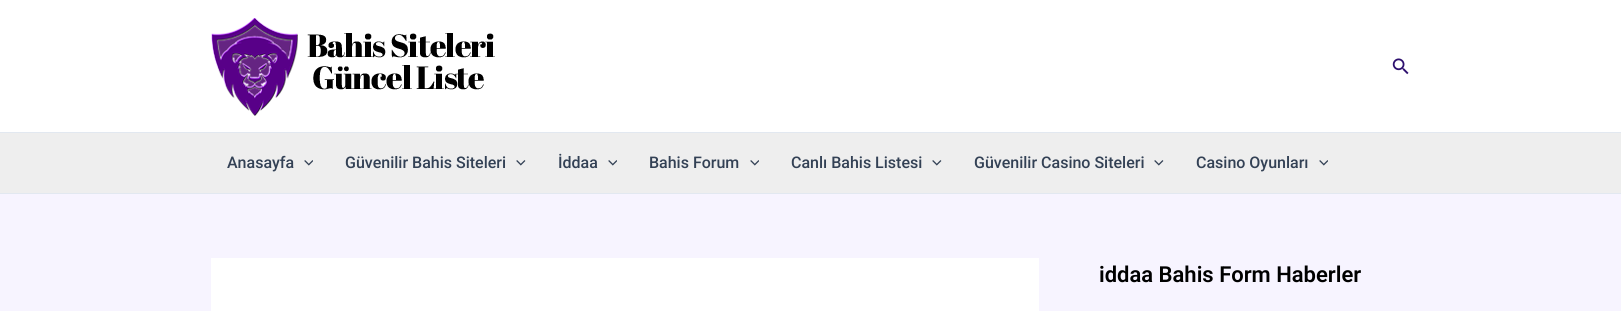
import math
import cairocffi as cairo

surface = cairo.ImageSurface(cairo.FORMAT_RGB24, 1621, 311)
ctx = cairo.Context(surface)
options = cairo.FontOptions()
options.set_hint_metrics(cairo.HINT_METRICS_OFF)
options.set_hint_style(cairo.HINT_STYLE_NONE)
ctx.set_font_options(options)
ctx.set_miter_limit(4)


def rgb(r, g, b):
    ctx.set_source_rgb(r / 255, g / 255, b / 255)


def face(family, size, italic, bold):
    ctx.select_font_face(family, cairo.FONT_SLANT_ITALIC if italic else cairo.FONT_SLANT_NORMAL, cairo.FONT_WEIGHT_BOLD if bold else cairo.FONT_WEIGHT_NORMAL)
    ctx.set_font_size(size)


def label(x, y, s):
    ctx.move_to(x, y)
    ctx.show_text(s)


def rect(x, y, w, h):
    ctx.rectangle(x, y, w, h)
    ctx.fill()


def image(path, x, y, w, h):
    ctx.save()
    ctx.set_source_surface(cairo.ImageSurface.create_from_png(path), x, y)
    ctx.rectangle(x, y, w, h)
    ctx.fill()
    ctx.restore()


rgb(247, 244, 255)
ctx.paint()
rgb(255, 255, 255)
rect(0, 0, 1621, 132)
rgb(226, 232, 240)
rect(0, 132, 1621, 1)
image('image0.png', 211, 18, 284, 98)
image('image1.png', 1392, 58, 17, 17)
rgb(238, 238, 238)
rect(0, 133, 1621, 60)
rgb(226, 232, 240)
rect(0, 193, 1621, 1)
face('Roboto Medium', 16, 0, 0)
rgb(51, 65, 85)
label(227, 168, 'Anasayfa')
image('image2.png', 304, 160, 9, 6)
label(345, 168, 'Güvenilir Bahis Siteleri')
image('image3.png', 516, 160, 10, 6)
label(558, 168, 'İddaa')
image('image2.png', 608, 160, 9, 6)
label(649, 168, 'Bahis Forum')
image('image2.png', 750, 160, 9, 6)
label(791, 168, 'Canlı Bahis Listesi')
image('image3.png', 932, 160, 10, 6)
label(974, 168, 'Güvenilir Casino Siteleri')
image('image3.png', 1154, 160, 10, 6)
label(1196, 168, 'Casino Oyunları')
image('image2.png', 1319, 160, 9, 6)
rgb(255, 255, 255)
rect(211, 258, 828, 53)
face('Roboto SemiBold', 22, 0, 0)
rgb(0, 0, 0)
label(1099, 282, 'iddaa Bahis Form Haberler')
surface.write_to_png('render.png')
